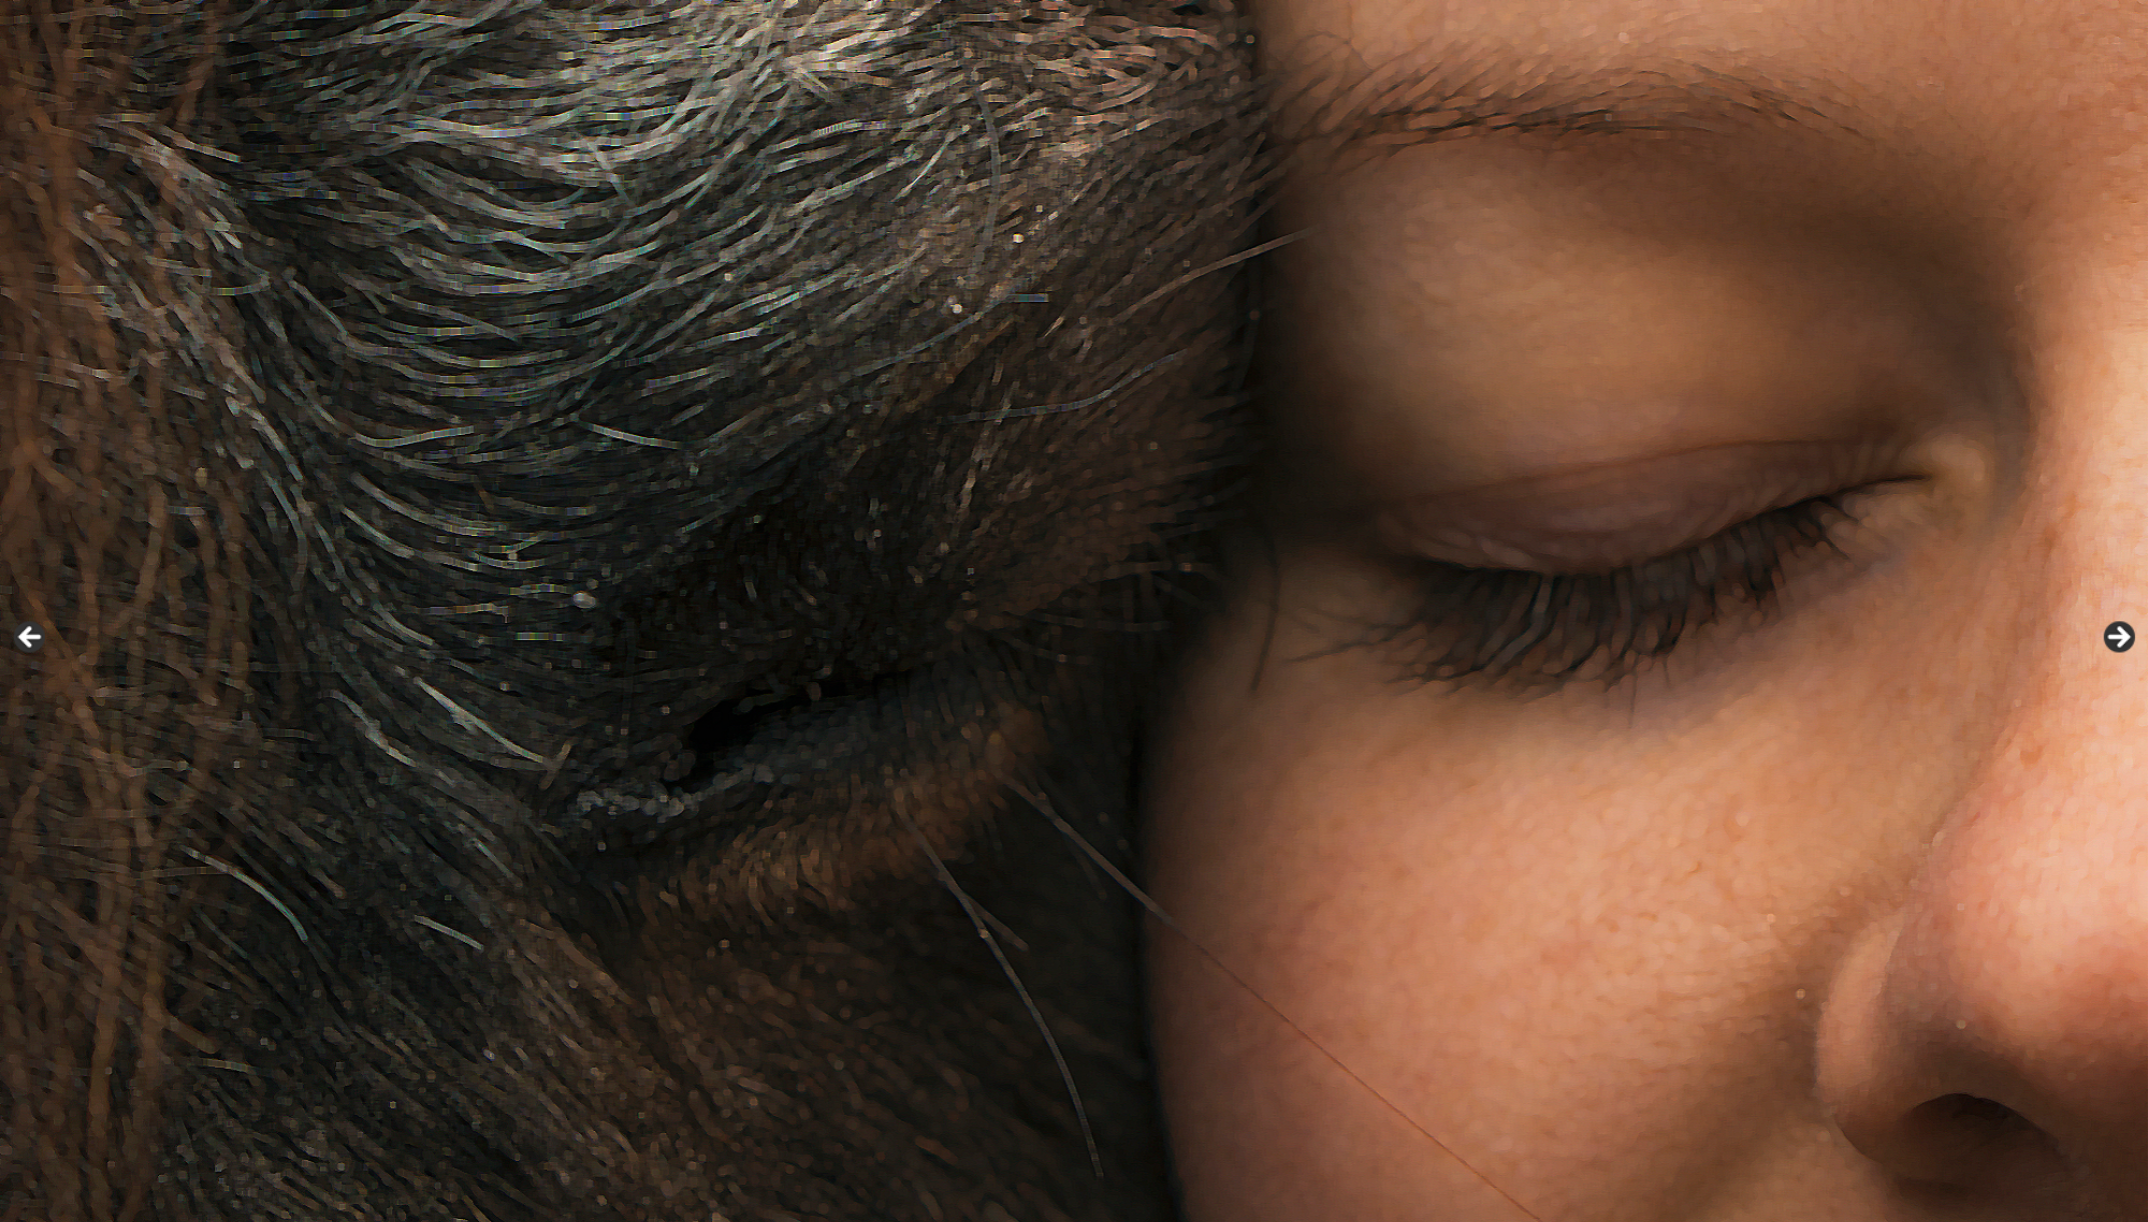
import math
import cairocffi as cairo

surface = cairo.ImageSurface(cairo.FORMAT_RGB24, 2148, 1222)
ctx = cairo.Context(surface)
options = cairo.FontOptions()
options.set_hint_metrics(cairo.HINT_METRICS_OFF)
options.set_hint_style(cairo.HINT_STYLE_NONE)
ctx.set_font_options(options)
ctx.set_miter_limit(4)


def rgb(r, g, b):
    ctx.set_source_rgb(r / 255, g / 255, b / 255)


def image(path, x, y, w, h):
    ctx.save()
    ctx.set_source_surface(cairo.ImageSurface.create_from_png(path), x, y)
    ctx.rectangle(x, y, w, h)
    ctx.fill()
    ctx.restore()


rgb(255, 255, 255)
ctx.paint()
image('image0.png', 0, 0, 2148, 1222)
image('image1.png', 13, 621, 32, 32)
image('image2.png', 2103, 621, 33, 32)
surface.write_to_png('render.png')
